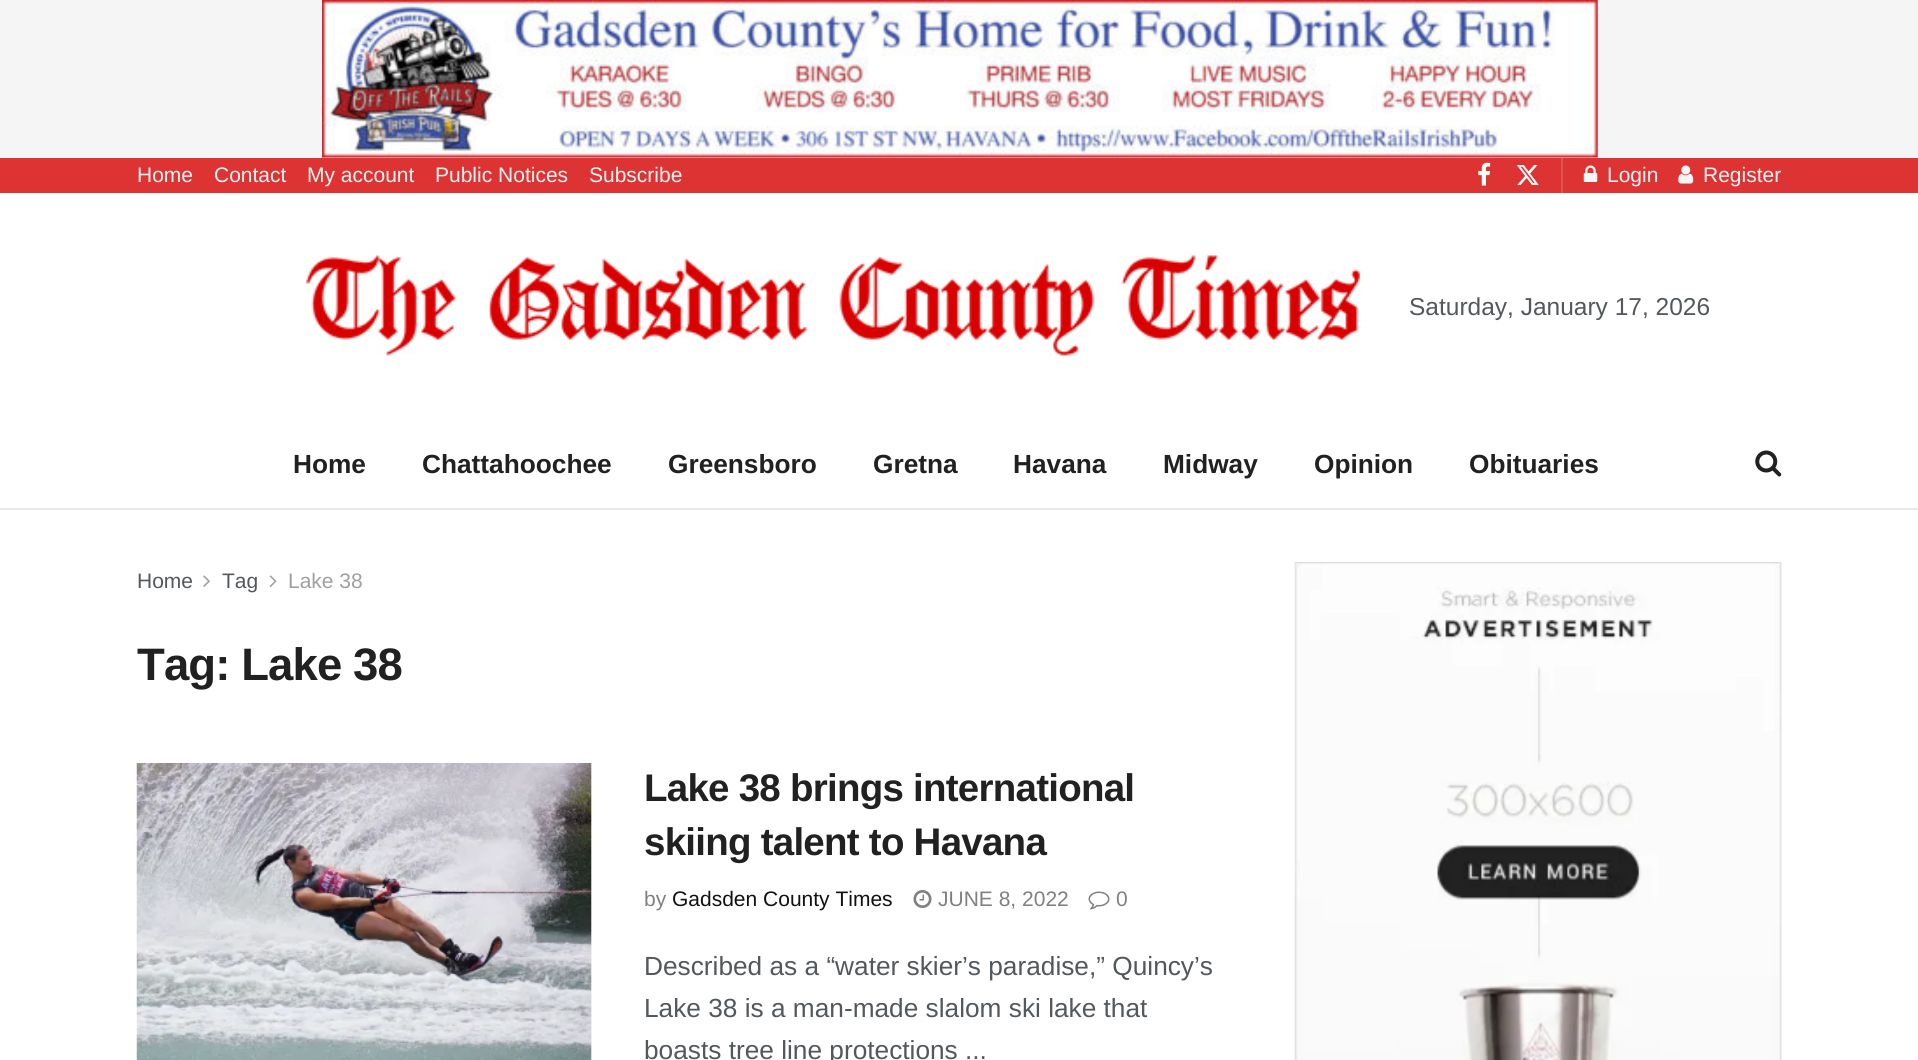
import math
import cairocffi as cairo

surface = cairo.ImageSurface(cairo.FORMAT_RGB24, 1918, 1060)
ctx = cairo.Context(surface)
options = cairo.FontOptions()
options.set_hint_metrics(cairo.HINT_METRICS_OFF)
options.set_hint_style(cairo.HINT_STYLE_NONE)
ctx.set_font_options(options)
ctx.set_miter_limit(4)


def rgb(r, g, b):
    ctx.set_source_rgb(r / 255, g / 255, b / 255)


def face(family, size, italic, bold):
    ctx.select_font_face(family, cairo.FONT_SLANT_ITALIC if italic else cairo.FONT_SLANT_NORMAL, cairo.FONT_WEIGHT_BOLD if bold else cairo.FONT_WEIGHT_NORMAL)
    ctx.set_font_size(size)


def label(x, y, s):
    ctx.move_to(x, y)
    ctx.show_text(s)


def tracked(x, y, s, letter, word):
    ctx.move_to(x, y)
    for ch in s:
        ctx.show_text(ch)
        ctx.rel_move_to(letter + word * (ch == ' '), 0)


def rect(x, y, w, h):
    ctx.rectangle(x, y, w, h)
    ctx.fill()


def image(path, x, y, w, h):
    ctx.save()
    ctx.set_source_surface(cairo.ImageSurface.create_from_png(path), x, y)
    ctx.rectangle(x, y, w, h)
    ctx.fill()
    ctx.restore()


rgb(255, 255, 255)
ctx.paint()
rgb(245, 245, 245)
rect(0, 0, 1918, 158)
image('image0.png', 322, 0, 1276, 158)
rgb(221, 51, 51)
rect(0, 158, 1918, 35)
rgb(226, 82, 82)
rect(1561, 158, 2, 35)
face('Liberation Sans', 21, 0, 0)
rgb(245, 245, 245)
label(137, 182, 'Home')
label(214, 182, 'Contact')
label(307, 182, 'My account')
label(435, 182, 'Public Notices')
label(589, 182, 'Subscribe')
image('image1.png', 1478, 162, 13, 24)
image('image2.png', 1516, 165, 23, 20)
image('image3.png', 1583, 165, 15, 17)
label(1607, 182, 'Login')
image('image4.png', 1678, 165, 16, 19)
label(1703, 182, 'Register')
image('image5.png', 306, 255, 1054, 101)
face('Liberation Sans', 24.5, 0, 0)
rgb(83, 88, 92)
label(1409, 315, 'Saturday, January 17, 2026')
rgb(232, 232, 232)
rect(0, 508, 1918, 2)
face('Liberation Sans', 26.25, 0, 1)
rgb(33, 33, 33)
label(293, 473, 'Home')
label(422, 473, 'Chattahoochee')
label(668, 473, 'Greensboro')
label(873, 473, 'Gretna')
label(1013, 473, 'Havana')
label(1163, 473, 'Midway')
label(1314, 473, 'Opinion')
label(1469, 473, 'Obituaries')
image('image6.png', 1755, 450, 27, 27)
face('Liberation Sans', 21, 0, 0)
rgb(83, 88, 92)
label(137, 588, 'Home')
image('image7.png', 203, 575, 7, 12)
label(222, 588, 'Tag')
image('image8.png', 269, 575, 8, 12)
rgb(160, 160, 160)
label(288, 588, 'Lake 38')
face('Liberation Sans', 45.5, 0, 1)
rgb(33, 33, 33)
tracked(137, 680, 'Tag: Lake 38', -0.9, 0)
rgb(247, 247, 247)
rect(591, 763, 1, 297)
image('image9.png', 136, 763, 456, 297)
face('Liberation Sans', 38.5, 0, 1)
rgb(33, 33, 33)
tracked(644, 801, 'Lake 38 brings international', -0.75, 0)
tracked(644, 855, 'skiing talent to Havana', -0.75, 0)
face('Liberation Sans', 21, 0, 0)
rgb(128, 128, 128)
label(644, 906, 'by')
rgb(17, 17, 17)
label(672, 906, 'Gadsden County Times')
image('image10.png', 913, 890, 19, 18)
rgb(128, 128, 128)
label(938, 906, 'JUNE 8, 2022')
image('image11.png', 1088, 891, 22, 19)
label(1116, 906, '0')
face('Liberation Sans', 26.25, 0, 0)
rgb(83, 88, 92)
label(644, 975, 'Described as a “water skier’s paradise,” Quincy’s')
label(644, 1017, 'Lake 38 is a man-made slalom ski lake that')
label(644, 1059, 'boasts tree line protections ...')
image('image12.png', 1294, 562, 488, 498)
surface.write_to_png('render.png')
